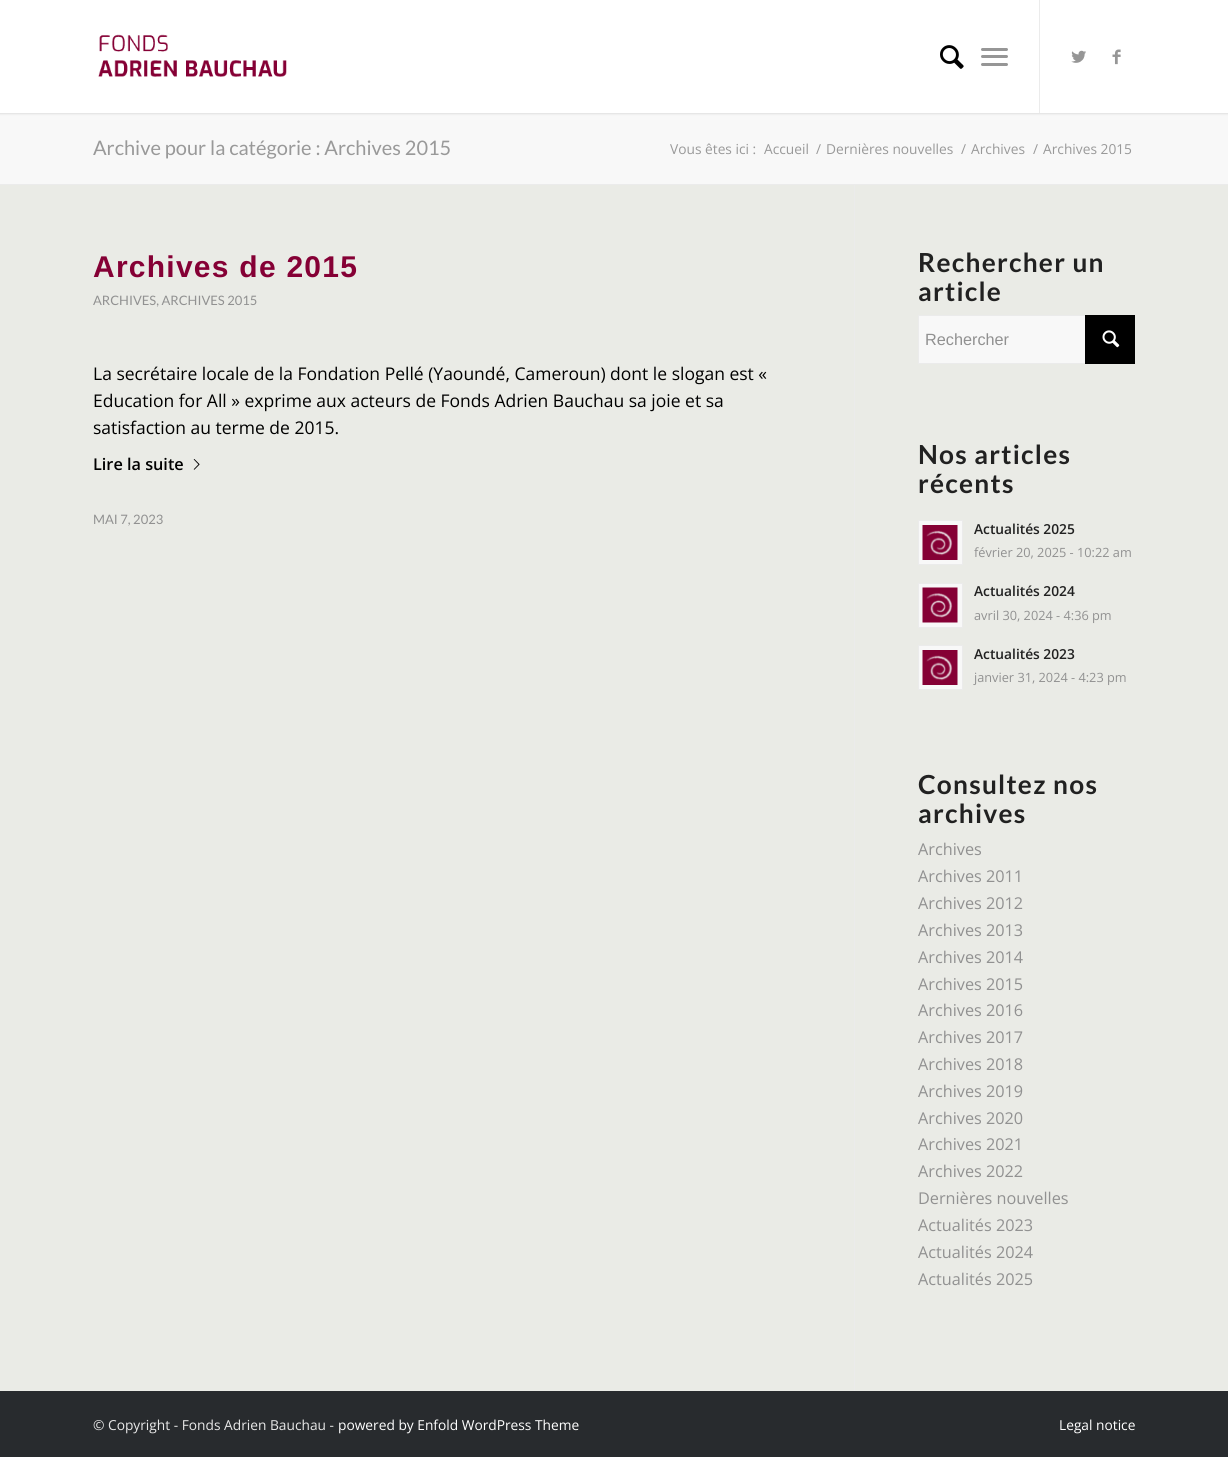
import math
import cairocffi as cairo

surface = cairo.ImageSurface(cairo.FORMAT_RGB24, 1228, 1457)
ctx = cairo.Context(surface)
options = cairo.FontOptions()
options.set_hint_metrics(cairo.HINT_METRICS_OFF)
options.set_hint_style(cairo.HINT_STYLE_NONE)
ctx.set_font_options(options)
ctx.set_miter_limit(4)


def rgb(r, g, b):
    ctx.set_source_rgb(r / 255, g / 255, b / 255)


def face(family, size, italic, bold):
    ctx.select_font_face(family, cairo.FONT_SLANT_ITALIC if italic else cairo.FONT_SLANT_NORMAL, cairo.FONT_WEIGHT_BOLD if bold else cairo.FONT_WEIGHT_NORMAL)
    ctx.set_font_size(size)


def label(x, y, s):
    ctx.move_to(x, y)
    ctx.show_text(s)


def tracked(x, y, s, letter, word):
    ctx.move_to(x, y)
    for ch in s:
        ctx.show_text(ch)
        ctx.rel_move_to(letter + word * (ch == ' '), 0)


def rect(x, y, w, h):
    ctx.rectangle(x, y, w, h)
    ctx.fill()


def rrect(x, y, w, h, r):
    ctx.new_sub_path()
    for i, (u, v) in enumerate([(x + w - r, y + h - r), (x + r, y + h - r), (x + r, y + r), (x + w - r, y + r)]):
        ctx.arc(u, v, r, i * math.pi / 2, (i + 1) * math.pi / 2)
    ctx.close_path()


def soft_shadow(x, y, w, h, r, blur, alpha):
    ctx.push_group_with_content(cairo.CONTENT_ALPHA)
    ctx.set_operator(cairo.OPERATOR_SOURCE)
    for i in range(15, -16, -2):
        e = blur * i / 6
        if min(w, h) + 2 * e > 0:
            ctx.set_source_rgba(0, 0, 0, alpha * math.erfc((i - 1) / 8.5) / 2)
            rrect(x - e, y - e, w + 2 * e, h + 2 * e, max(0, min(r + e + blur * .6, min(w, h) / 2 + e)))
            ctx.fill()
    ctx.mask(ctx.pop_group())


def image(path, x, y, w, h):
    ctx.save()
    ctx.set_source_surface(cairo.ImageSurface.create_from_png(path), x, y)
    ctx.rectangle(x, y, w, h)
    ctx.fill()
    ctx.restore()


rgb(248, 248, 248)
ctx.paint()
rgb(0, 0, 0)
soft_shadow(-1, -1, 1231, 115, 0, 1, 0.1)
rgb(255, 255, 255)
rect(0, 0, 1228, 113)
image('image0.png', 98, 34, 189, 43)
rgb(235, 235, 235)
rect(1039, 0, 1, 113)
image('image1.png', 940, 45, 24, 24)
rgb(150, 150, 150)
rrect(981, 55, 27, 3, 1.5)
ctx.fill()
rrect(981, 48, 27, 3, 1.5)
ctx.fill()
rrect(981, 63, 27, 3, 1.5)
ctx.fill()
image('image2.png', 1071, 50, 15, 13)
image('image3.png', 1112, 49, 9, 16)
face('Lato', 20, 0, 0)
rgb(153, 153, 153)
label(93, 155, 'Archive pour la catégorie : Archives 2015')
face('Open Sans', 13.75, 0, 0)
label(670, 154, 'Vous êtes ici :')
label(764, 154, 'Accueil')
label(816, 154, '/')
label(826, 154, 'Dernières nouvelles')
label(961, 154, '/')
label(971, 154, 'Archives')
label(1033, 154, '/')
label(1043, 154, 'Archives 2015')
rgb(234, 235, 230)
rect(0, 185, 1228, 1206)
rgb(235, 235, 235)
rect(0, 184, 1228, 1)
face('Liberation Sans', 30, 0, 1)
rgb(133, 0, 53)
tracked(93, 277, 'Archives de 2015', 1.25, 0)
face('Lato', 13, 0, 0)
rgb(145, 145, 145)
label(93, 305, 'ARCHIVES, ARCHIVES 2015')
face('Open Sans', 17.5, 0, 0)
rgb(0, 0, 0)
label(93, 380, 'La secrétaire locale de la Fondation Pellé (Yaoundé, Cameroun) dont le slogan est «')
label(93, 407, 'Education for All » exprime aux acteurs de Fonds Adrien Bauchau sa joie et sa')
label(93, 434, 'satisfaction au terme de 2015.')
face('Open Sans SemiBold', 16.25, 0, 0)
label(93, 470, 'Lire la suite')
image('image4.png', 193, 459, 7, 11)
face('Lato', 13, 0, 0)
rgb(145, 145, 145)
label(93, 524, 'MAI 7, 2023')
rgb(235, 235, 235)
rect(854, 185, 1, 1208)
face('Lato', 26.25, 0, 1)
rgb(33, 33, 33)
tracked(918, 272, 'Rechercher un', 1.25, 0)
tracked(918, 301, 'article', 1.25, 0)
rgb(248, 248, 248)
rect(919, 316, 166, 47)
ctx.rectangle(918.5, 315.5, 216, 48)
rgb(235, 235, 235)
ctx.set_line_width(1)
ctx.stroke()
face('Liberation Sans', 16.25, 0, 0)
rgb(145, 145, 145)
label(925, 345, 'Rechercher')
rgb(0, 0, 0)
rect(1085, 315, 50, 49)
image('image5.png', 1102, 330, 18, 18)
face('Lato', 26.25, 0, 1)
rgb(33, 33, 33)
tracked(918, 464, 'Nos articles', 1.25, 0)
tracked(918, 493, 'récents', 1.25, 0)
rgb(248, 248, 248)
ctx.rectangle(918.5, 520.5, 44, 44)
ctx.fill_preserve()
rgb(235, 235, 235)
ctx.stroke()
image('image6.png', 922, 525, 36, 35)
face('Open Sans SemiBold', 13.75, 0, 0)
rgb(33, 33, 33)
label(974, 534, 'Actualités 2025')
face('Open Sans', 12.75, 0, 0)
rgb(145, 145, 145)
label(974, 557, 'février 20, 2025 - 10:22 am')
rgb(248, 248, 248)
ctx.rectangle(918.5, 583.5, 44, 44)
ctx.fill_preserve()
rgb(235, 235, 235)
ctx.stroke()
image('image7.png', 922, 587, 36, 36)
face('Open Sans SemiBold', 13.75, 0, 0)
rgb(33, 33, 33)
label(974, 596, 'Actualités 2024')
face('Open Sans', 12.75, 0, 0)
rgb(145, 145, 145)
label(974, 620, 'avril 30, 2024 - 4:36 pm')
rgb(248, 248, 248)
ctx.rectangle(918.5, 645.5, 44, 44)
ctx.fill_preserve()
rgb(235, 235, 235)
ctx.stroke()
image('image6.png', 922, 650, 36, 35)
face('Open Sans SemiBold', 13.75, 0, 0)
rgb(33, 33, 33)
label(974, 659, 'Actualités 2023')
face('Open Sans', 12.75, 0, 0)
rgb(145, 145, 145)
label(974, 682, 'janvier 31, 2024 - 4:23 pm')
face('Lato', 26.25, 0, 1)
rgb(33, 33, 33)
tracked(918, 794, 'Consultez nos', 1.25, 0)
tracked(918, 823, 'archives', 1.25, 0)
face('Open Sans', 16.25, 0, 0)
rgb(145, 145, 145)
label(918, 855, 'Archives')
label(918, 882, 'Archives 2011')
label(918, 909, 'Archives 2012')
label(918, 936, 'Archives 2013')
label(918, 963, 'Archives 2014')
label(918, 990, 'Archives 2015')
label(918, 1016, 'Archives 2016')
label(918, 1043, 'Archives 2017')
label(918, 1070, 'Archives 2018')
label(918, 1097, 'Archives 2019')
label(918, 1124, 'Archives 2020')
label(918, 1150, 'Archives 2021')
label(918, 1177, 'Archives 2022')
label(918, 1204, 'Dernières nouvelles')
label(918, 1231, 'Actualités 2023')
label(918, 1258, 'Actualités 2024')
label(918, 1285, 'Actualités 2025')
rgb(40, 43, 46)
rect(0, 1391, 1228, 66)
face('Open Sans', 13.75, 0, 0)
rgb(232, 232, 232)
label(93, 1430, '© Copyright - Fonds Adrien Bauchau -')
rgb(255, 255, 255)
label(338, 1430, 'powered by Enfold WordPress Theme')
label(1059, 1430, 'Legal notice')
surface.write_to_png('render.png')
